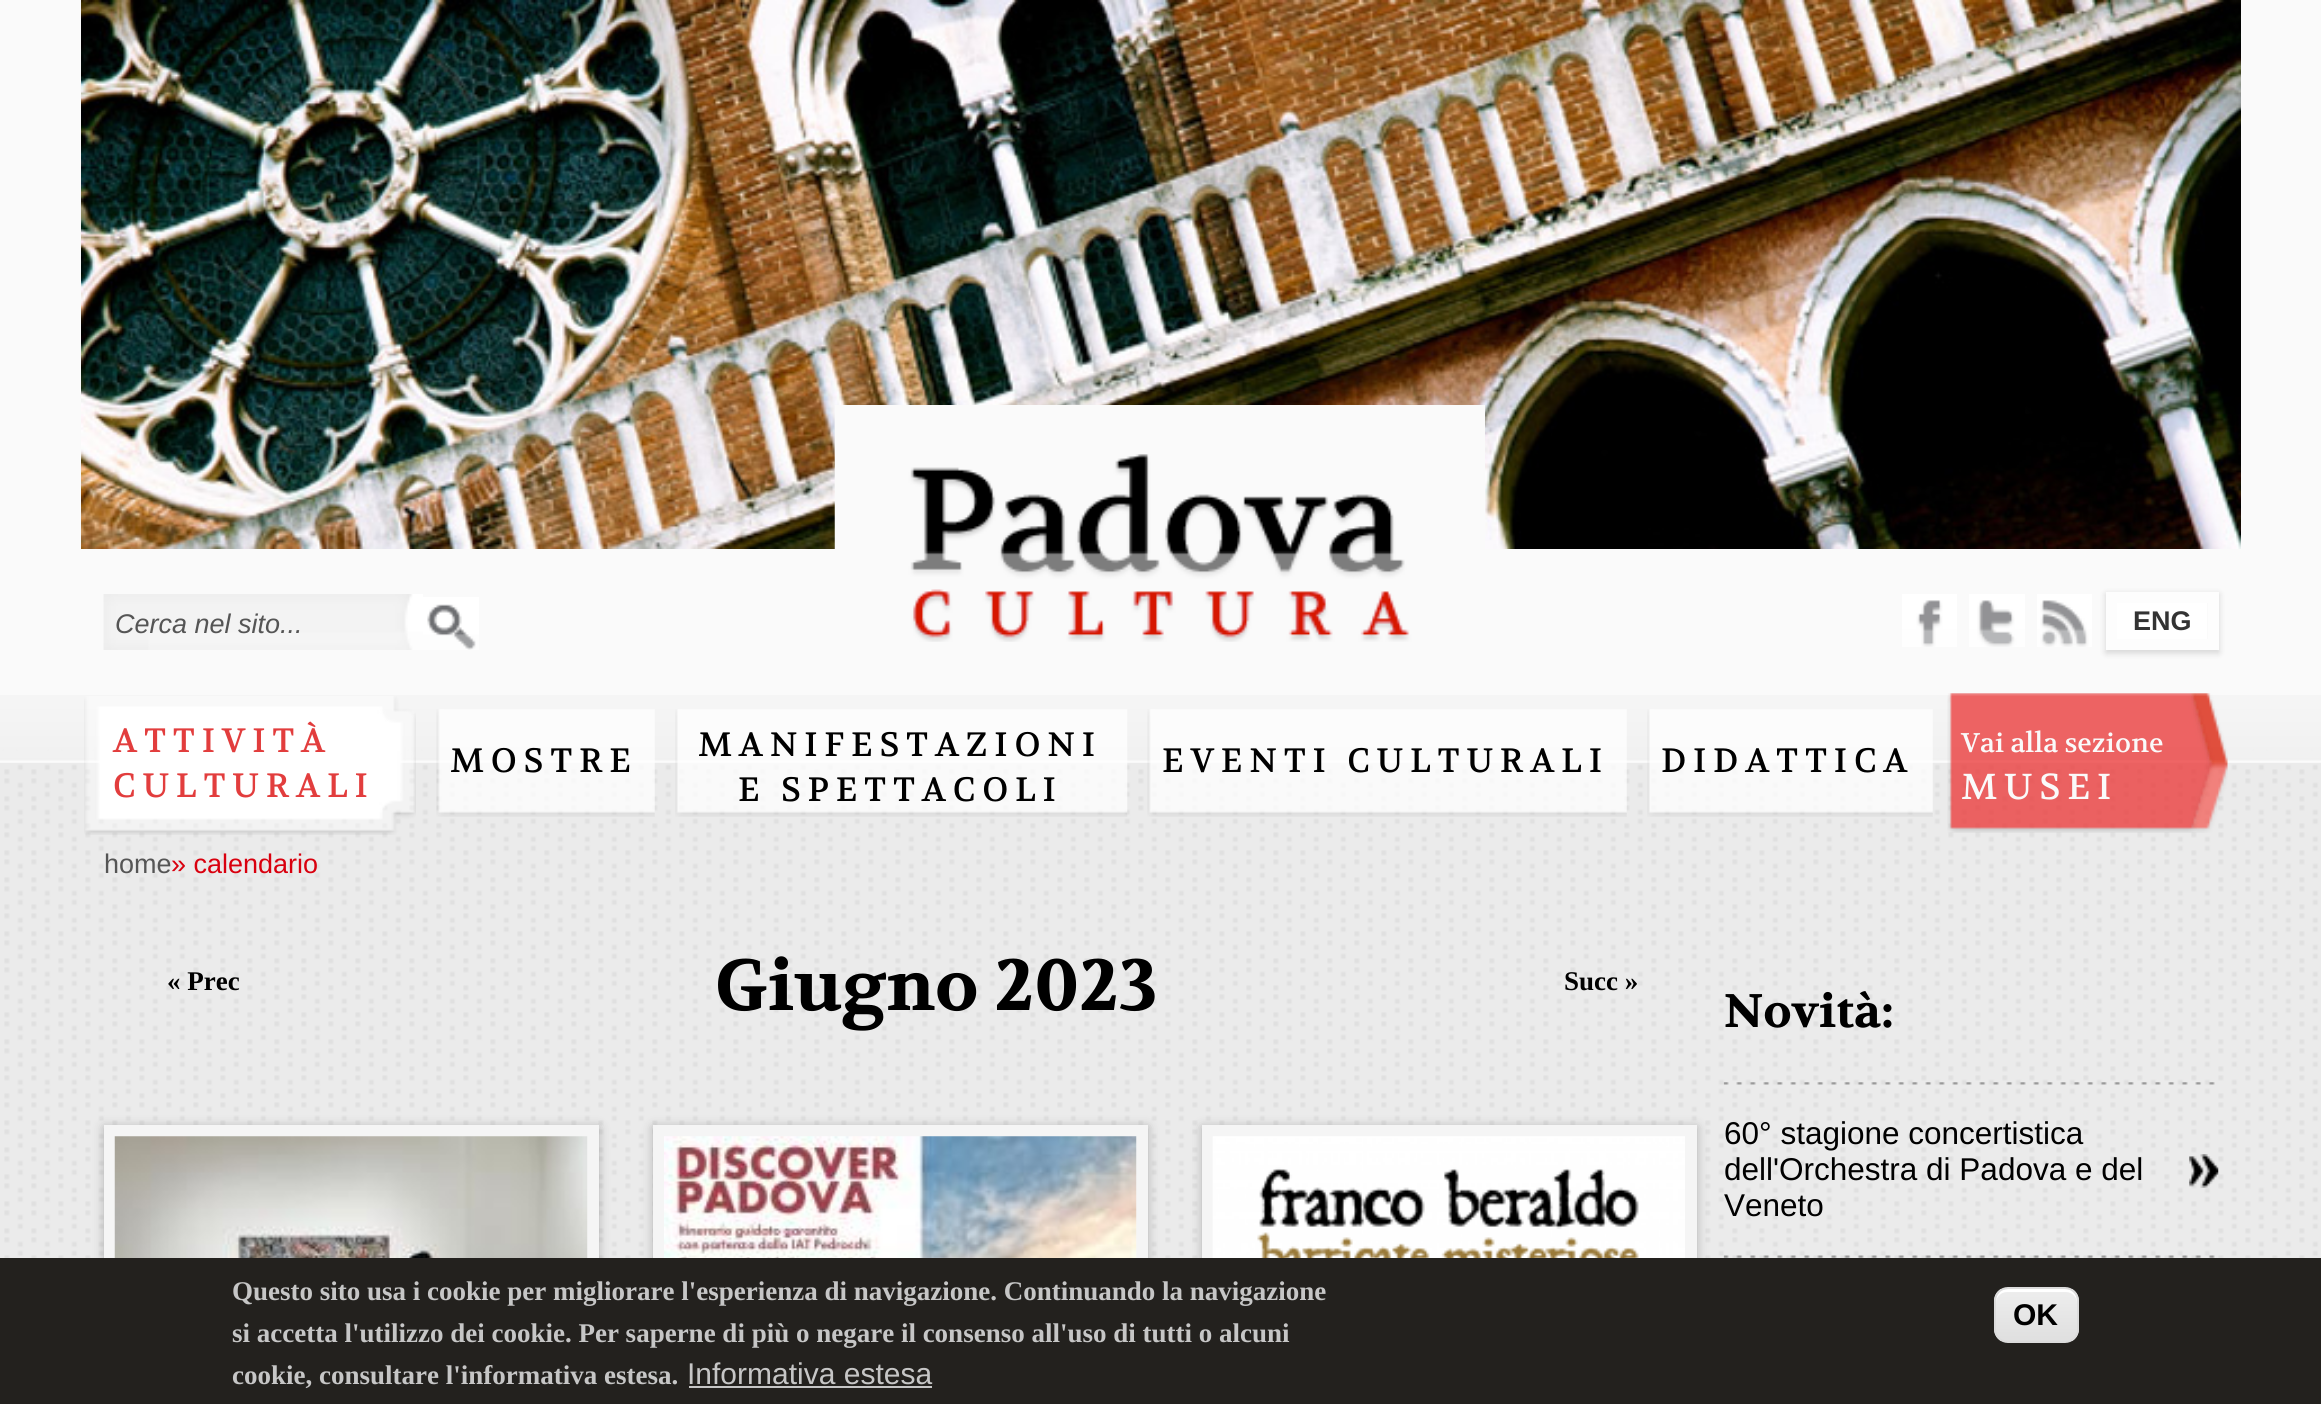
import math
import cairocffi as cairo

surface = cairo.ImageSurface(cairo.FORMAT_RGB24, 2321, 1404)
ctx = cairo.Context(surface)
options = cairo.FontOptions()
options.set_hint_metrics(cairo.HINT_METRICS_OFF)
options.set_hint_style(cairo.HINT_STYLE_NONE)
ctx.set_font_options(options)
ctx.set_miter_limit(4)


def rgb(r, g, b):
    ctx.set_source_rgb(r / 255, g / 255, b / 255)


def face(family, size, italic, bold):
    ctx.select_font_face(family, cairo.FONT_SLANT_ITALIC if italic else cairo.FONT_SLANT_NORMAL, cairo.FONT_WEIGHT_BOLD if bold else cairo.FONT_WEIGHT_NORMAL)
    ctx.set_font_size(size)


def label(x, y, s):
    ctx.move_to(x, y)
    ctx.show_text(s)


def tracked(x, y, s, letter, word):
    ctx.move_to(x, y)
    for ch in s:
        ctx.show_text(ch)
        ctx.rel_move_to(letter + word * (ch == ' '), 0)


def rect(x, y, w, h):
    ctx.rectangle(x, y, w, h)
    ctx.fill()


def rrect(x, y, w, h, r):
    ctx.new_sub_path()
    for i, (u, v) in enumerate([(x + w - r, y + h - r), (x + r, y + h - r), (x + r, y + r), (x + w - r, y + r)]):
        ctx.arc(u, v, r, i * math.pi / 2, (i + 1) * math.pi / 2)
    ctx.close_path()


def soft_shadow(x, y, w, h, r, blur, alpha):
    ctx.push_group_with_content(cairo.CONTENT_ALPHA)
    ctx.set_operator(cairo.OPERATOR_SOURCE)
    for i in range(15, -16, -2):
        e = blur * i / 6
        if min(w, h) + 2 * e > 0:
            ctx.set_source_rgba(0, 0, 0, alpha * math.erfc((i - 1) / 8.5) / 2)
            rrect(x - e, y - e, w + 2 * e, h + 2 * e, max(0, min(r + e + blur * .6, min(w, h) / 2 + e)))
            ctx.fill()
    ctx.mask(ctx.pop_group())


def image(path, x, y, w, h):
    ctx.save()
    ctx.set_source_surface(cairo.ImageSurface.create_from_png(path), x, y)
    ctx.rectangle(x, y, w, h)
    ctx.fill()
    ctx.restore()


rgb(250, 250, 250)
ctx.paint()
image('image0.png', 0, 695, 2321, 68)
image('image1.png', 81, 0, 2160, 549)
image('image2.png', 103, 594, 320, 56)
face('Liberation Sans', 27, 1, 0)
rgb(85, 85, 85)
label(115, 633, 'Cerca nel sito...')
image('image3.png', 423, 597, 56, 53)
image('image4.png', 834, 405, 651, 237)
image('image5.png', 1902, 594, 55, 53)
image('image6.png', 1969, 594, 56, 53)
image('image7.png', 2037, 594, 55, 53)
ctx.save()
ctx.set_fill_rule(cairo.FILL_RULE_EVEN_ODD)
ctx.new_path()
ctx.move_to(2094, 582)
ctx.line_to(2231, 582)
ctx.line_to(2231, 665)
ctx.line_to(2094, 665)
ctx.close_path()
ctx.move_to(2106, 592)
ctx.line_to(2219, 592)
ctx.line_to(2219, 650)
ctx.line_to(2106, 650)
ctx.close_path()
ctx.clip()
rgb(0, 0, 0)
soft_shadow(2106, 594, 113, 59, 0, 3.5, 0.15)
ctx.restore()
ctx.rectangle(2111.5, 597.5, 102, 47)
ctx.set_source_rgba(1, 1, 1, 0.5)
ctx.set_line_width(11)
ctx.stroke()
rgb(255, 255, 255)
rect(2117, 603, 90, 36)
face('Liberation Sans', 27, 0, 1)
rgb(51, 51, 51)
label(2133, 630, 'ENG')
image('image14.png', 0, 763, 2321, 495)
image('image8.png', 84, 696, 332, 139)
face('Volkhov', 33.75, 0, 0)
rgb(226, 61, 61)
tracked(113, 752, 'ATTIVITÀ', 6.75, 0)
tracked(113, 797, 'CULTURALI', 6.75, 0)
image('image9.png', 436, 709, 219, 108)
rgb(0, 0, 0)
tracked(450, 772, 'MOSTRE', 6.75, 0)
image('image10.png', 675, 709, 453, 108)
tracked(698, 756, 'MANIFESTAZIONI', 6.75, 0)
tracked(738, 801, 'E SPETTACOLI', 6.75, 0)
image('image11.png', 1147, 709, 480, 108)
tracked(1162, 772, 'EVENTI CULTURALI', 6.75, 0)
image('image12.png', 1647, 709, 286, 108)
tracked(1661, 772, 'DIDATTICA', 6.75, 0)
image('image13.png', 1947, 693, 281, 140)
face('Volkhov', 27, 0, 0)
rgb(250, 250, 250)
label(1961, 752, 'Vai alla sezione')
face('Volkhov', 36, 0, 0)
tracked(1961, 799, 'MUSEI', 6.75, 0)
face('Liberation Sans', 27, 0, 0)
rgb(85, 85, 85)
label(104, 873, 'home')
rgb(217, 0, 14)
label(171, 873, '» calendario')
face('Volkhov', 72, 0, 1)
rgb(0, 0, 0)
label(715, 1010, 'Giugno 2023')
face('Liberation Serif', 27, 0, 1)
label(167, 990, '« Prec')
label(1564, 990, 'Succ »')
rgb(0, 0, 0)
soft_shadow(104, 1127, 495, 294, 0, 5.5, 0.25)
rgb(245, 245, 245)
rect(104, 1125, 495, 133)
image('image15.png', 114, 1136, 474, 122)
rgb(0, 0, 0)
soft_shadow(653, 1127, 495, 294, 0, 5.5, 0.25)
rgb(245, 245, 245)
rect(653, 1125, 495, 133)
image('image16.png', 664, 1136, 473, 122)
rgb(0, 0, 0)
soft_shadow(1202, 1127, 495, 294, 0, 5.5, 0.25)
rgb(245, 245, 245)
rect(1202, 1125, 495, 133)
image('image17.png', 1212, 1136, 473, 122)
face('Volkhov', 47, 0, 1)
rgb(0, 0, 0)
label(1724, 1027, 'Novità:')
image('image18.png', 1723, 1082, 492, 3)
face('Liberation Sans', 31.5, 0, 0)
label(1724, 1144, '60° stagione concertistica')
label(1724, 1180, 'dell\'Orchestra di Padova e del')
label(1724, 1216, 'Veneto')
image('image19.png', 2189, 1154, 30, 34)
image('image20.png', 1723, 1255, 492, 3)
rgb(35, 33, 30)
rect(0, 1258, 2321, 146)
face('Liberation Serif', 27, 0, 1)
rgb(198, 198, 198)
label(232, 1300, 'Questo sito usa i cookie per migliorare l\'esperienza di navigazione. Continuando la navigazione')
label(232, 1342, 'si accetta l\'utilizzo dei cookie. Per saperne di più o negare il consenso all\'uso di tutti o alcuni')
label(232, 1384, 'cookie, consultare l\'informativa estesa.')
face('Liberation Sans', 30, 0, 0)
label(687, 1384, 'Informativa estesa')
rect(689, 1386, 243, 2)
ctx.save()
rrect(1994, 1287, 85, 56, 14)
ctx.clip()
gradient = cairo.LinearGradient(2036, 1289, 2036, 1341)
gradient.add_color_stop_rgba(0.05, 0.929, 0.929, 0.929, 1)
gradient.add_color_stop_rgba(1, 0.875, 0.875, 0.875, 1)
ctx.set_source(gradient)
rect(1994, 1289, 85, 52)
ctx.restore()
rgb(255, 255, 255)
ctx.new_path()
ctx.move_to(2007, 1292)
ctx.line_to(2066, 1292)
ctx.curve_to(2072, 1292, 2077, 1297, 2077, 1303)
ctx.curve_to(2077, 1288, 2069, 1289, 2056, 1289)
ctx.line_to(2017, 1289)
ctx.curve_to(2004, 1289, 1996, 1288, 1996, 1303)
ctx.curve_to(1996, 1297, 2001, 1292, 2007, 1292)
ctx.close_path()
ctx.fill()
rrect(1995, 1288, 83, 54, 13)
rgb(220, 220, 220)
ctx.set_line_width(2)
ctx.stroke()
face('Liberation Sans', 30, 0, 1)
rgb(0, 0, 0)
label(2013, 1325, 'OK')
surface.write_to_png('render.png')
